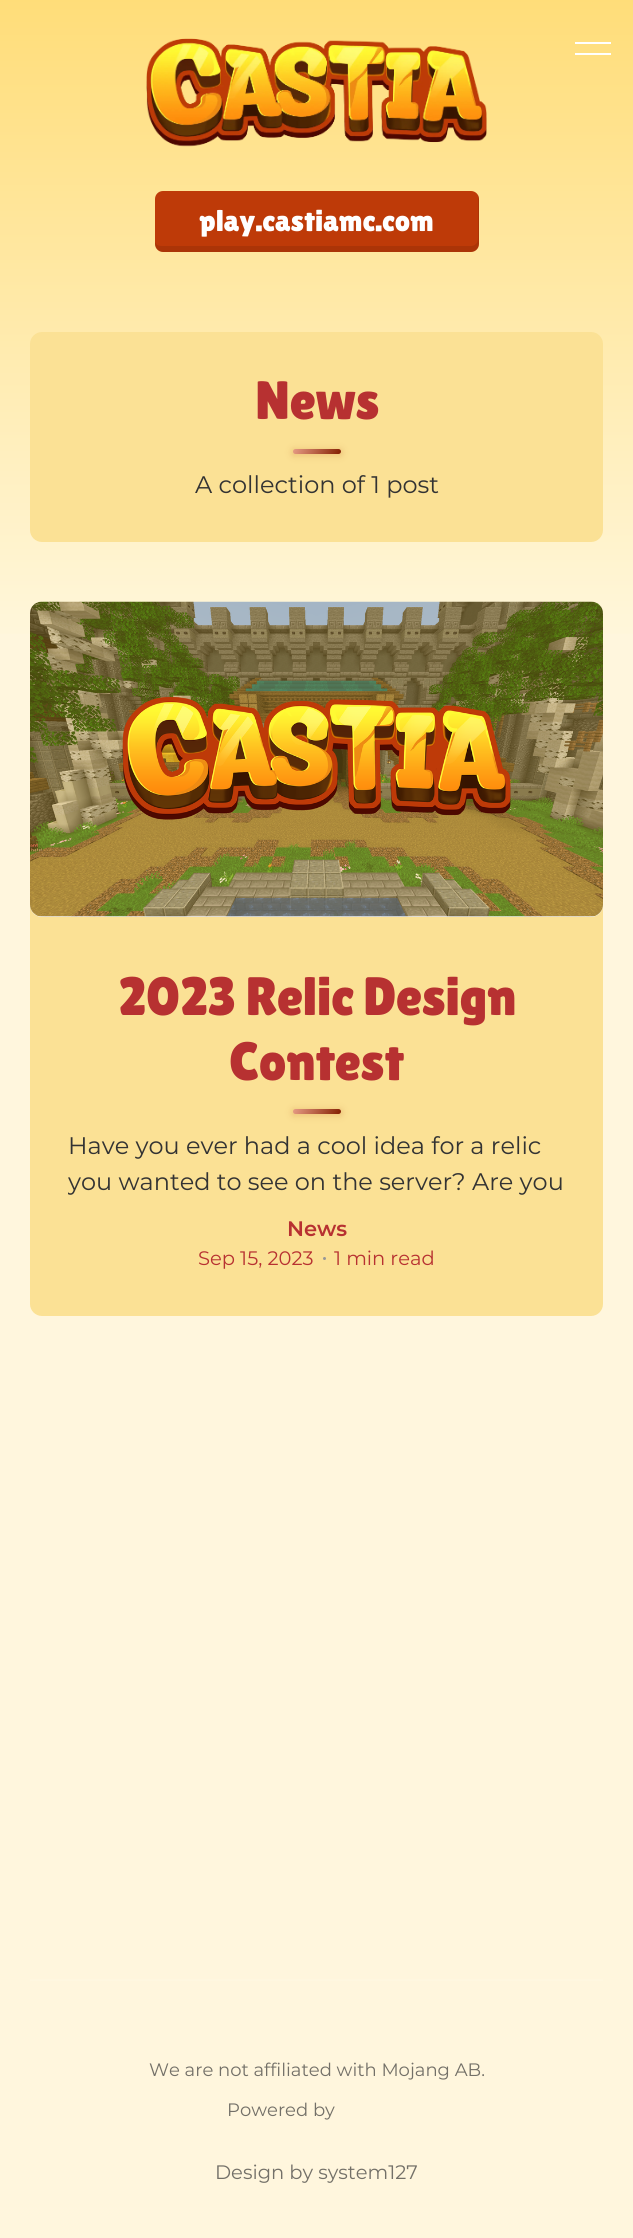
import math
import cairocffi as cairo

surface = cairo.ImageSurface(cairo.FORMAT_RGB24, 633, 2238)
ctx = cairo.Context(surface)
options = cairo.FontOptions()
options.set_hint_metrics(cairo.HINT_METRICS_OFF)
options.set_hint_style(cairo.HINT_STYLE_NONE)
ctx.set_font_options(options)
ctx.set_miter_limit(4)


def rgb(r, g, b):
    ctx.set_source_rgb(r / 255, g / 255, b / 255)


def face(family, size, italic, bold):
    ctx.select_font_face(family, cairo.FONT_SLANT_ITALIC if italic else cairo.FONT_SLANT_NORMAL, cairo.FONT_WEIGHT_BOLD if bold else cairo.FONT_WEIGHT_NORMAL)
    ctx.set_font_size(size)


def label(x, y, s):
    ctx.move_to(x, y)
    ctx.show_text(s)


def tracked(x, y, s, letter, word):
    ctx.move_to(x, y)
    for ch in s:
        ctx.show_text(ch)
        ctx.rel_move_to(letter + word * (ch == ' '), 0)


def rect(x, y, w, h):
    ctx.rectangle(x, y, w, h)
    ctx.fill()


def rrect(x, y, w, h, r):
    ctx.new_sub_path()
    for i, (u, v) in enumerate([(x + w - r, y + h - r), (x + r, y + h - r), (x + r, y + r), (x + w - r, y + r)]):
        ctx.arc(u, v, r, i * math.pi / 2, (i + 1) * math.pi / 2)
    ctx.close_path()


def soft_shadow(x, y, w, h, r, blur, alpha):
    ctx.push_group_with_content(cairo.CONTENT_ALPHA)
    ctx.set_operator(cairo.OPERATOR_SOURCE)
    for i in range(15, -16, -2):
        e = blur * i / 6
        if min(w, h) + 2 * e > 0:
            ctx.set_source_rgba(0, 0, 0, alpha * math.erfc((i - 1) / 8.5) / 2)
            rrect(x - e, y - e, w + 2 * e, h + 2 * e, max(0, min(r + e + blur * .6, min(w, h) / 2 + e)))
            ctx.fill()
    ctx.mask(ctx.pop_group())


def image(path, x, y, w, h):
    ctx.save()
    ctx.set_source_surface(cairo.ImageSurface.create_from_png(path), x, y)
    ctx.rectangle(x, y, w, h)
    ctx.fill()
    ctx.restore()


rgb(255, 246, 221)
ctx.paint()
gradient = cairo.LinearGradient(317, 650, 317, 0)
gradient.add_color_stop_rgba(0, 1, 0.969, 0.867, 1)
gradient.add_color_stop_rgba(1, 1, 0.867, 0.475, 1)
ctx.set_source(gradient)
rect(0, 0, 633, 634)
rgb(255, 255, 255)
rect(575, 42, 36, 2)
rect(575, 53, 36, 2)
image('image0.png', 146, 38, 341, 109)
rgb(190, 58, 8)
rrect(155, 191, 324, 61, 8)
ctx.fill()
ctx.set_source_rgba(0, 0, 0, 0.1)
ctx.new_path()
ctx.move_to(155, 242)
ctx.line_to(155, 244)
ctx.curve_to(155, 248, 159, 252, 163, 252)
ctx.line_to(471, 252)
ctx.curve_to(475, 252, 479, 248, 479, 244)
ctx.line_to(479, 199)
ctx.curve_to(479, 198, 479, 196, 478, 195)
ctx.line_to(478, 238)
ctx.curve_to(478, 243, 475, 246, 471, 246)
ctx.line_to(162, 246)
ctx.curve_to(159, 246, 156, 245, 155, 242)
ctx.close_path()
ctx.fill()
face('Lilita One', 30, 0, 0)
rgb(255, 255, 255)
label(199, 231, 'play.castiamc.com')
rgb(251, 225, 149)
rrect(30, 332, 573, 210, 12)
ctx.fill()
face('Lilita One', 54, 0, 0)
rgb(183, 49, 49)
tracked(255, 419, 'News', -0.5, 0)
rgb(188, 94, 31)
soft_shadow(293, 450, 48, 5, 2.5, 4, 0.28)
gradient = cairo.LinearGradient(296, 441, 337, 460)
gradient.add_color_stop_rgba(0, 0.91, 0.616, 0.525, 1)
gradient.add_color_stop_rgba(1, 0.522, 0.133, 0.016, 1)
ctx.set_source(gradient)
rrect(293, 449, 48, 5, 2.5)
ctx.fill()
face('Montserrat', 24, 0, 0)
rgb(51, 51, 51)
label(195, 493, 'A collection of 1 post')
rgb(251, 225, 149)
rrect(30, 602, 573, 714, 12)
ctx.fill()
rgb(241, 241, 241)
rrect(30, 602, 573, 315, 12)
ctx.fill()
image('image1.png', 30, 601, 573, 316)
face('Lilita One', 54, 0, 0)
rgb(183, 49, 49)
tracked(118, 1015, '2023 Relic Design', -0.5, 0)
tracked(229, 1080, 'Contest', -0.5, 0)
rgb(188, 94, 31)
soft_shadow(293, 1110, 48, 5, 2.5, 4, 0.28)
gradient = cairo.LinearGradient(296, 1101, 337, 1120)
gradient.add_color_stop_rgba(0, 0.91, 0.616, 0.525, 1)
gradient.add_color_stop_rgba(1, 0.522, 0.133, 0.016, 1)
ctx.set_source(gradient)
rrect(293, 1109, 48, 5, 2.5)
ctx.fill()
face('Montserrat', 24, 0, 0)
rgb(51, 51, 51)
label(68, 1154, 'Have you ever had a cool idea for a relic')
ctx.save()
ctx.rectangle(68, 1128, 498, 72)
ctx.clip()
label(68, 1190, 'you wanted to see on the server? Are you')
ctx.restore()
face('Montserrat SemiBold', 21, 0, 0)
rgb(183, 49, 49)
label(287, 1236, 'News')
face('Montserrat', 19.5, 0, 0)
label(198, 1265, 'Sep 15, 2023')
rgb(151, 151, 151)
ctx.new_path()
ctx.arc(324.5, 1258.5, 1.5, 0, 2 * math.pi)
ctx.fill()
rgb(183, 49, 49)
label(334, 1265, '1 min read')
rgb(255, 247, 224)
rect(30, 1979, 573, 2)
face('Montserrat', 18, 0, 0)
rgb(115, 112, 104)
label(149, 2076, 'We are not affiliated with Mojang AB.')
label(227, 2116, 'Powered by')
face('Montserrat', 19.5, 0, 0)
label(215, 2179, 'Design by system127')
surface.write_to_png('render.png')
